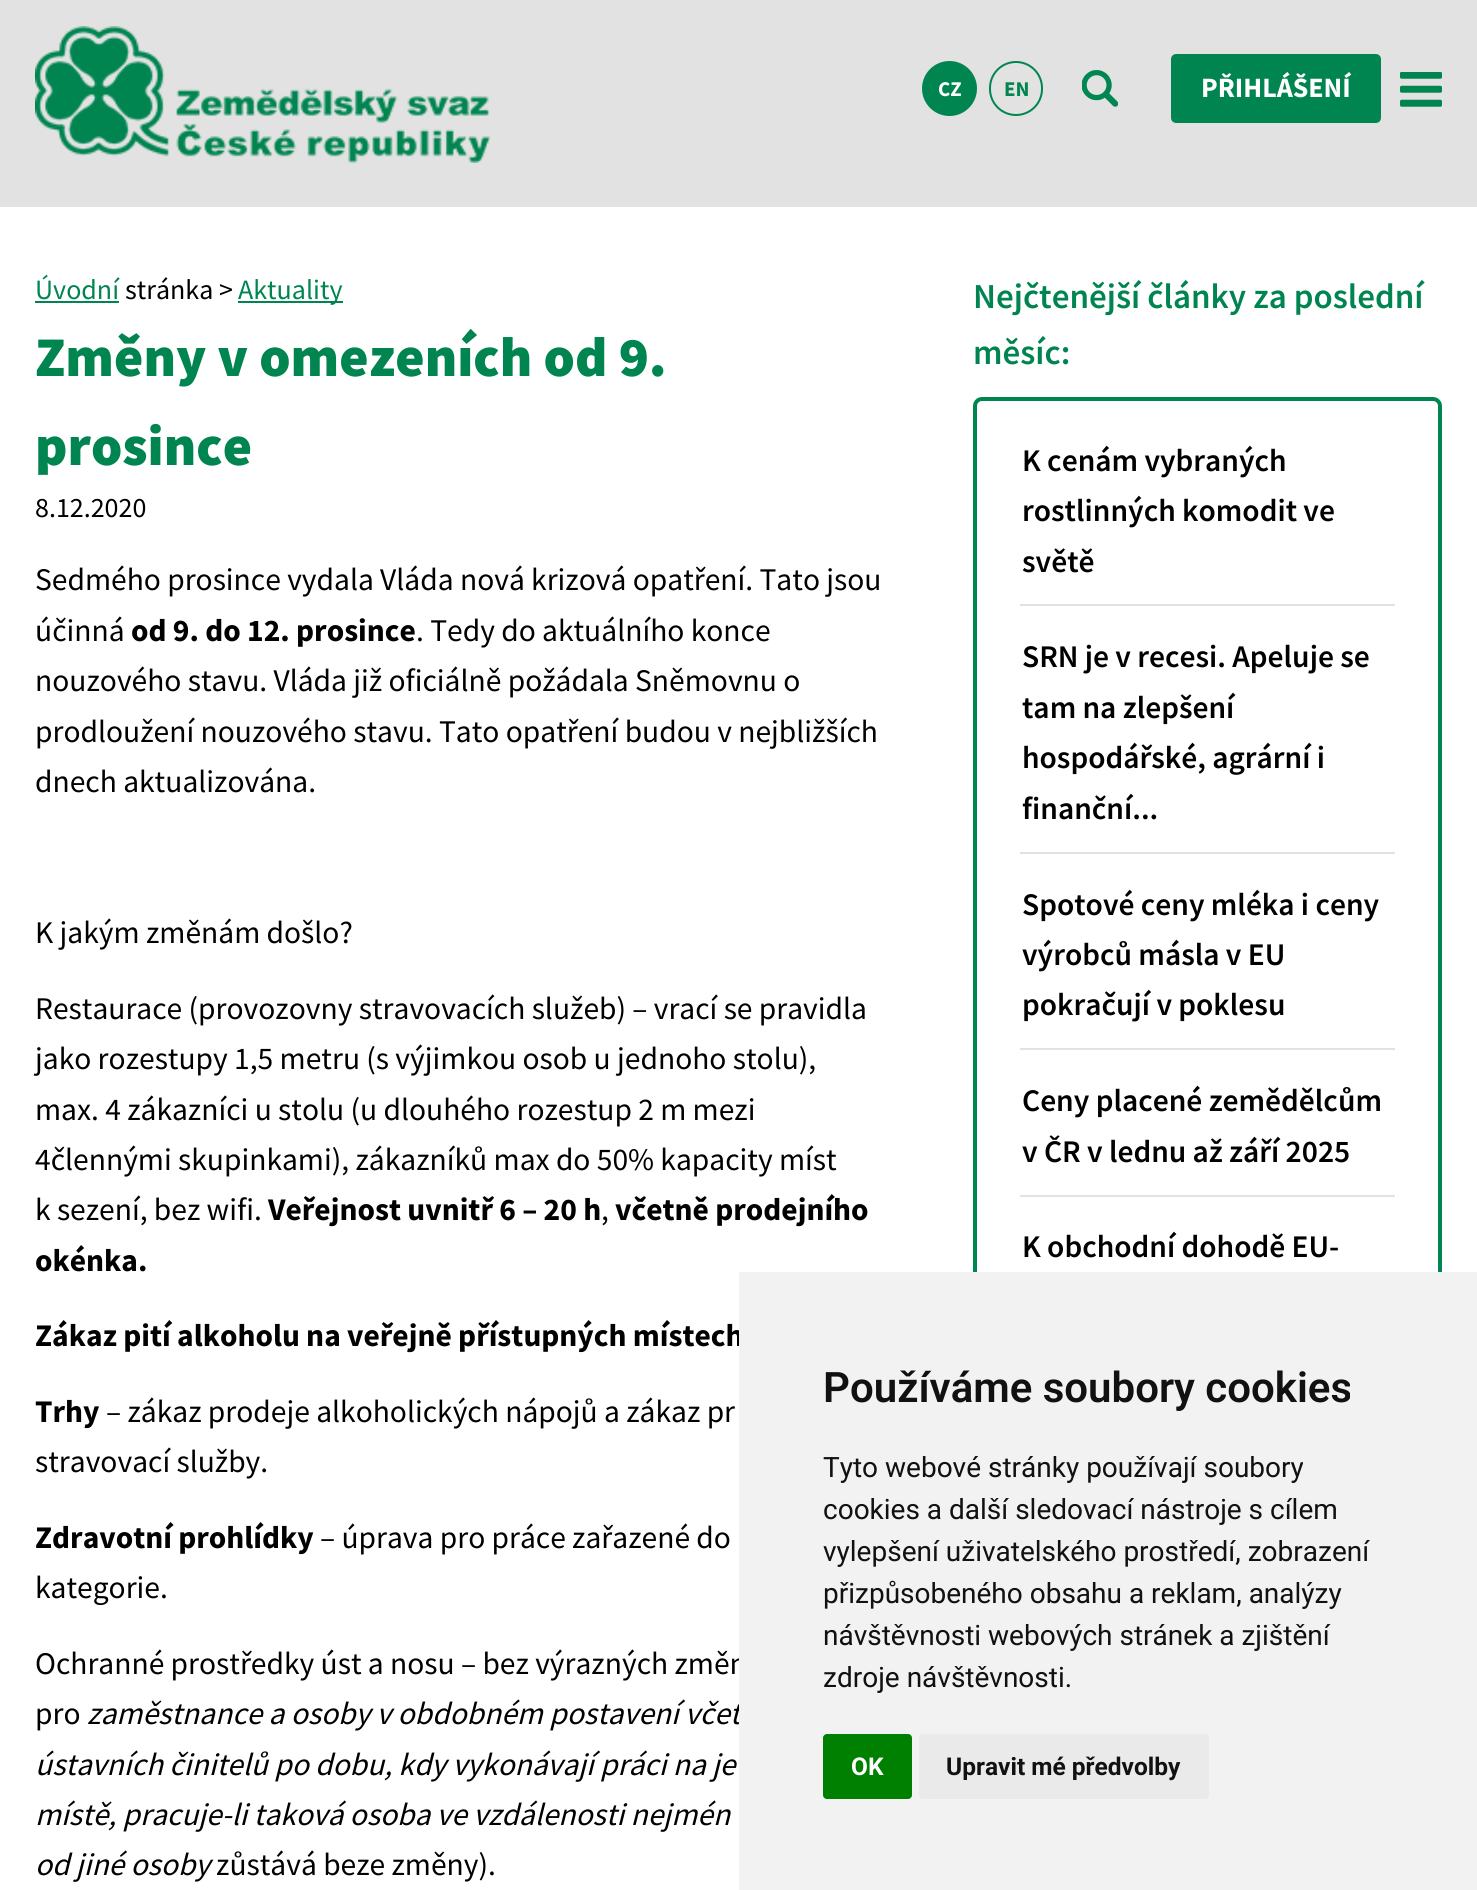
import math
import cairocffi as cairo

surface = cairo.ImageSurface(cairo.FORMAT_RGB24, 1477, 1890)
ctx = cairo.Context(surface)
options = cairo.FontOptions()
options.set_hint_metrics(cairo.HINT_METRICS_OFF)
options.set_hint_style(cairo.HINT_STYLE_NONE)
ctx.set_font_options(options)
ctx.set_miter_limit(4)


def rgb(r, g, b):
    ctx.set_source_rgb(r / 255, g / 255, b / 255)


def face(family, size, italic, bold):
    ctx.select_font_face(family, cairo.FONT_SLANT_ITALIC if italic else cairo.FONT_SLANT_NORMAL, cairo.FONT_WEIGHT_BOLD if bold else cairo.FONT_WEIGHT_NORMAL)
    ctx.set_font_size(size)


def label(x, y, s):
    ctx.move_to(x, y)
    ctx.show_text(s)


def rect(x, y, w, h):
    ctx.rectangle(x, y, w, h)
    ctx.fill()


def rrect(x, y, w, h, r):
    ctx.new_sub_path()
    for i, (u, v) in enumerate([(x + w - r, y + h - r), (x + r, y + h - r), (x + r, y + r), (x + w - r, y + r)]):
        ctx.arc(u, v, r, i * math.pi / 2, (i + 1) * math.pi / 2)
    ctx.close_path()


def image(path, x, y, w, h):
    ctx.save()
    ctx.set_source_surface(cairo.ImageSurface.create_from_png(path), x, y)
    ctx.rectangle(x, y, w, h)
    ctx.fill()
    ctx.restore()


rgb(255, 255, 255)
ctx.paint()
rgb(226, 226, 226)
rect(0, 0, 1477, 207)
image('image0.png', 35, 26, 455, 137)
rgb(0, 133, 81)
ctx.arc(949.5, 88.5, 26.5, 0, 2 * math.pi)
ctx.fill_preserve()
ctx.stroke()
face('Source Sans Pro', 21, 0, 1)
rgb(255, 255, 255)
label(938, 96, 'CZ')
rrect(990, 62, 52, 53, 26)
rgb(0, 133, 81)
ctx.stroke()
label(1004, 96, 'EN')
image('image1.png', 1082, 70, 36, 37)
rrect(1173, 56, 206, 65, 3)
ctx.fill_preserve()
ctx.set_line_width(4)
ctx.stroke()
face('Source Sans Pro', 28, 0, 1)
rgb(255, 255, 255)
label(1201, 97, 'PŘIHLÁŠENÍ')
image('image2.png', 1400, 72, 42, 35)
face('Source Sans Pro', 28, 0, 0)
rgb(0, 133, 81)
label(35, 299, 'Úvodní')
rect(35, 301, 84, 2)
rgb(0, 0, 0)
label(125, 299, 'stránka >')
rgb(0, 133, 81)
rect(238, 301, 105, 2)
label(238, 299, 'Aktuality')
face('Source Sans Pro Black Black', 56, 0, 0)
label(35, 376, 'Změny v omezeních od 9.')
label(35, 465, 'prosince')
face('Source Sans Pro', 28, 0, 0)
rgb(0, 0, 0)
label(35, 517, '8.12.2020')
face('Source Sans Pro', 31.5, 0, 0)
label(35, 590, 'Sedmého prosince vydala Vláda nová krizová opatření. Tato jsou')
label(35, 641, 'účinná')
face('Source Sans Pro', 31.5, 0, 1)
label(131, 641, 'od 9. do 12. prosince')
face('Source Sans Pro', 31.5, 0, 0)
label(416, 641, '. Tedy do aktuálního konce')
label(35, 691, 'nouzového stavu. Vláda již oficiálně požádala Sněmovnu o')
label(35, 742, 'prodloužení nouzového stavu. Tato opatření budou v nejbližších')
label(35, 792, 'dnech aktualizována.')
label(35, 943, 'K jakým změnám došlo?')
label(35, 1019, 'Restaurace (provozovny stravovacích služeb) – vrací se pravidla')
label(35, 1069, 'jako rozestupy 1,5 metru (s výjimkou osob u jednoho stolu),')
label(35, 1120, 'max. 4 zákazníci u stolu (u dlouhého rozestup 2 m mezi')
label(35, 1170, '4člennými skupinkami), zákazníků max do 50% kapacity míst')
label(35, 1220, 'k sezení, bez wifi.')
face('Source Sans Pro', 31.5, 0, 1)
label(268, 1220, 'Veřejnost uvnitř 6 – 20 h')
face('Source Sans Pro', 31.5, 0, 0)
label(601, 1220, ',')
face('Source Sans Pro', 31.5, 0, 1)
label(615, 1220, 'včetně prodejního')
label(35, 1271, 'okénka.')
label(35, 1346, 'Zákaz pití alkoholu na veřejně přístupných místech')
label(35, 1422, 'Trhy')
face('Source Sans Pro', 31.5, 0, 0)
label(106, 1422, '– zákaz prodeje alkoholických nápojů a zákaz pr')
label(35, 1472, 'stravovací služby.')
face('Source Sans Pro', 31.5, 0, 1)
label(35, 1548, 'Zdravotní prohlídky')
face('Source Sans Pro', 31.5, 0, 0)
label(320, 1548, '– úprava pro práce zařazené do')
label(35, 1598, 'kategorie.')
label(35, 1674, 'Ochranné prostředky úst a nosu – bez výrazných změn')
label(35, 1724, 'pro')
face('Source Sans Pro', 31.5, 1, 0)
label(87, 1724, 'zaměstnance a osoby v obdobném postavení včet')
label(35, 1775, 'ústavních činitelů po dobu, kdy vykonávají práci na je')
label(35, 1825, 'místě, pracuje-li taková osoba ve vzdálenosti nejmén')
label(35, 1875, 'od jiné osoby')
face('Source Sans Pro', 31.5, 0, 0)
label(216, 1875, 'zůstává beze změny).')
face('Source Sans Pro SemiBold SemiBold', 35, 0, 0)
rgb(0, 133, 81)
label(973, 308, 'Nejčtenější články za poslední')
label(973, 364, 'měsíc:')
rrect(975, 399, 465, 1081, 7)
ctx.stroke()
rgb(226, 226, 226)
rect(1020, 604, 375, 2)
face('Source Sans Pro SemiBold SemiBold', 31.5, 0, 0)
rgb(0, 0, 0)
label(1022, 471, 'K cenám vybraných')
label(1022, 521, 'rostlinných komodit ve')
label(1022, 572, 'světě')
rgb(226, 226, 226)
rect(1020, 852, 375, 2)
rgb(0, 0, 0)
label(1022, 667, 'SRN je v recesi. Apeluje se')
label(1022, 718, 'tam na zlepšení')
label(1022, 768, 'hospodářské, agrární i')
label(1022, 819, 'finanční...')
rgb(226, 226, 226)
rect(1020, 1048, 375, 2)
rgb(0, 0, 0)
label(1022, 915, 'Spotové ceny mléka i ceny')
label(1022, 965, 'výrobců másla v EU')
label(1022, 1015, 'pokračují v poklesu')
rgb(226, 226, 226)
rect(1020, 1195, 375, 2)
rgb(0, 0, 0)
label(1022, 1111, 'Ceny placené zemědělcům')
label(1022, 1162, 'v ČR v lednu až září 2025')
label(1022, 1257, 'K obchodní dohodě EU-')
rgb(242, 242, 242)
rect(739, 1272, 738, 618)
face('Roboto SemiBold', 42, 0, 0)
rgb(17, 17, 17)
label(823, 1402, 'Používáme soubory cookies')
face('Roboto', 28, 0, 0)
label(823, 1477, 'Tyto webové stránky používají soubory')
label(823, 1519, 'cookies a další sledovací nástroje s cílem')
label(823, 1561, 'vylepšení uživatelského prostředí, zobrazení')
label(823, 1603, 'přizpůsobeného obsahu a reklam, analýzy')
label(823, 1645, 'návštěvnosti webových stránek a zjištění')
label(823, 1687, 'zdroje návštěvnosti.')
rgb(0, 128, 0)
rrect(823, 1734, 89, 65, 4)
ctx.fill()
face('Roboto', 24.5, 0, 1)
rgb(255, 255, 255)
label(851, 1775, 'OK')
rgb(234, 234, 234)
rrect(919, 1734, 290, 65, 4)
ctx.fill()
rgb(17, 17, 17)
label(946, 1775, 'Upravit mé předvolby')
surface.write_to_png('render.png')
